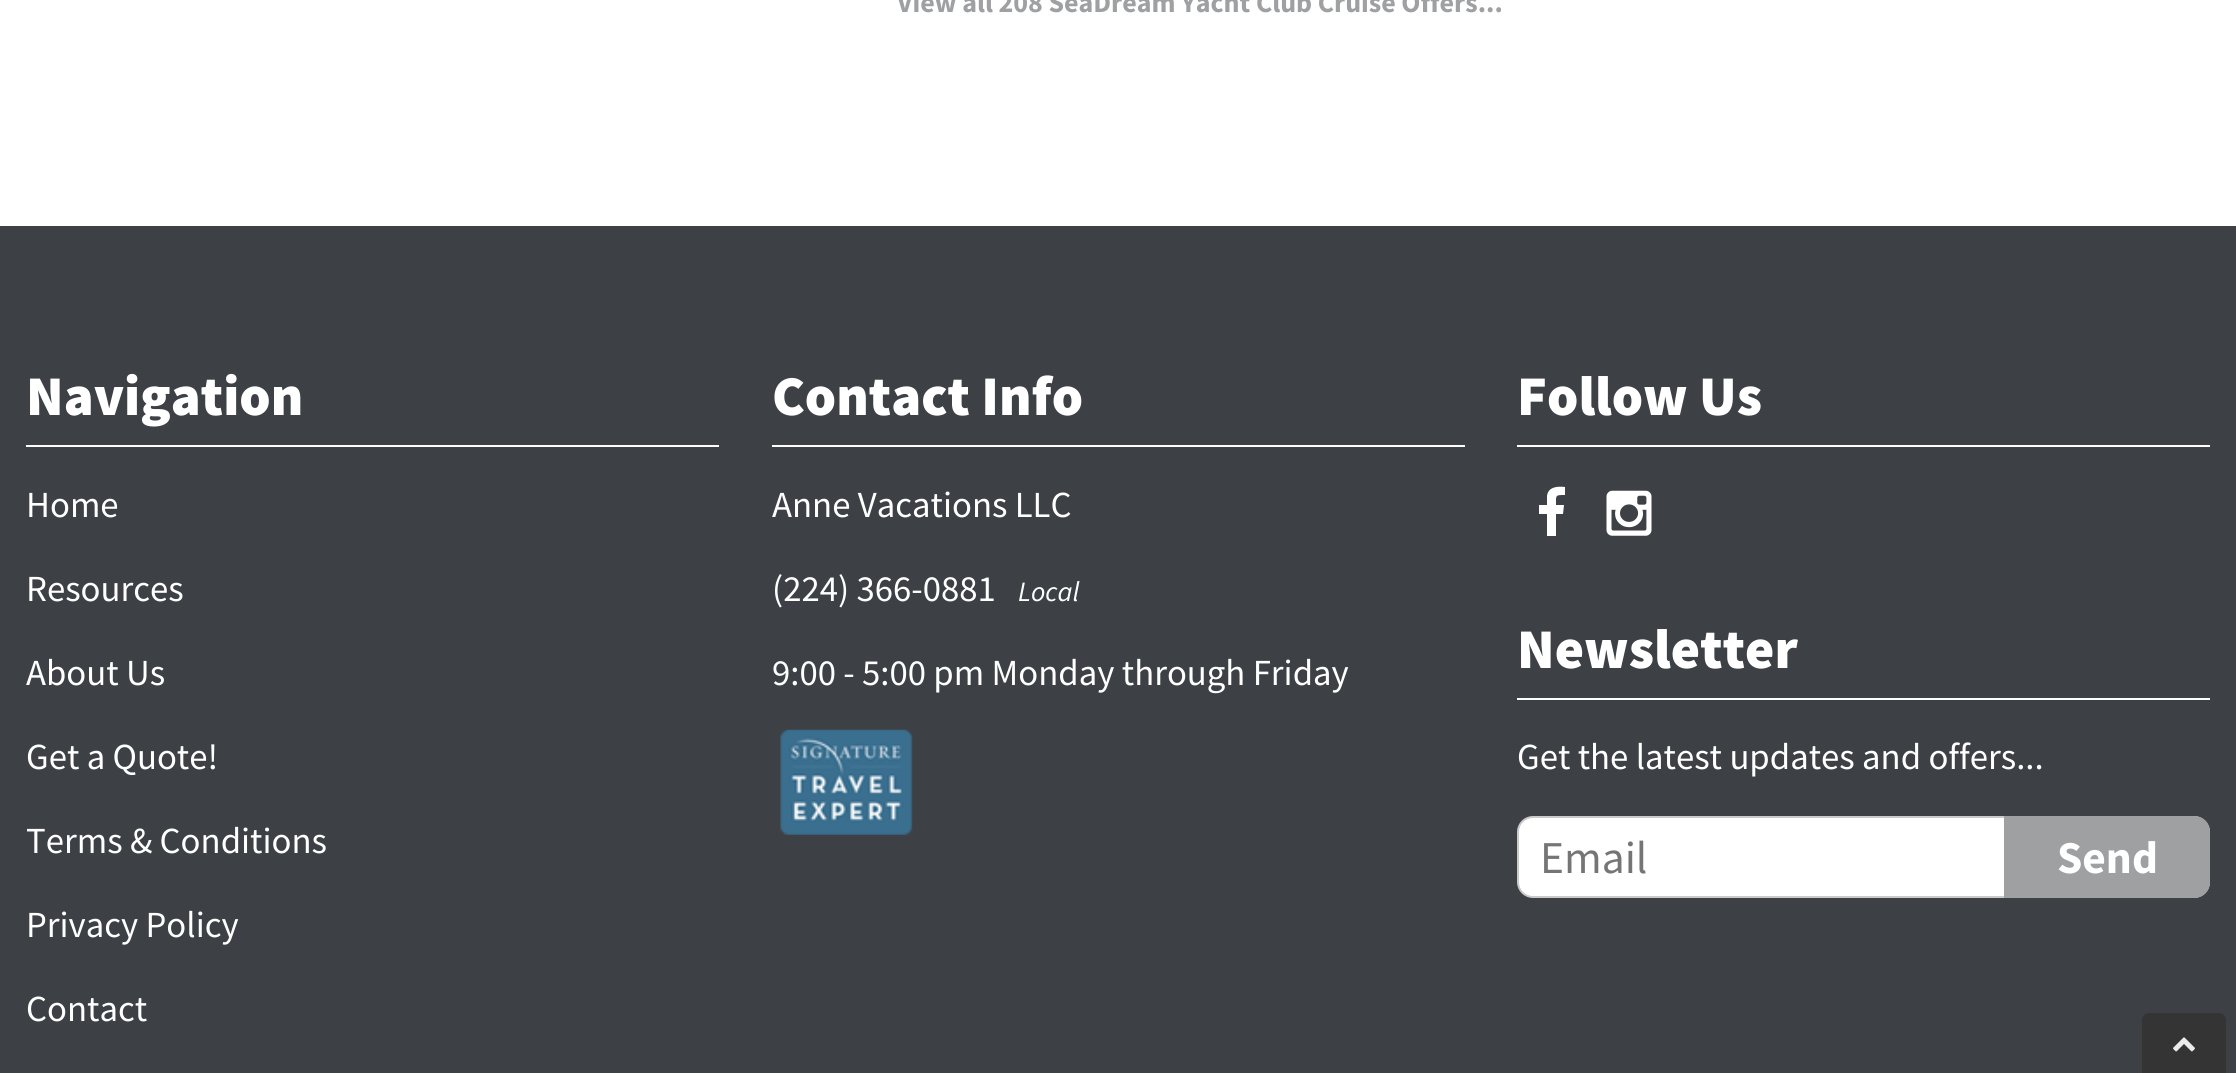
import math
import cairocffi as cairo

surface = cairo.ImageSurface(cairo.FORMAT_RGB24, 2236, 1073)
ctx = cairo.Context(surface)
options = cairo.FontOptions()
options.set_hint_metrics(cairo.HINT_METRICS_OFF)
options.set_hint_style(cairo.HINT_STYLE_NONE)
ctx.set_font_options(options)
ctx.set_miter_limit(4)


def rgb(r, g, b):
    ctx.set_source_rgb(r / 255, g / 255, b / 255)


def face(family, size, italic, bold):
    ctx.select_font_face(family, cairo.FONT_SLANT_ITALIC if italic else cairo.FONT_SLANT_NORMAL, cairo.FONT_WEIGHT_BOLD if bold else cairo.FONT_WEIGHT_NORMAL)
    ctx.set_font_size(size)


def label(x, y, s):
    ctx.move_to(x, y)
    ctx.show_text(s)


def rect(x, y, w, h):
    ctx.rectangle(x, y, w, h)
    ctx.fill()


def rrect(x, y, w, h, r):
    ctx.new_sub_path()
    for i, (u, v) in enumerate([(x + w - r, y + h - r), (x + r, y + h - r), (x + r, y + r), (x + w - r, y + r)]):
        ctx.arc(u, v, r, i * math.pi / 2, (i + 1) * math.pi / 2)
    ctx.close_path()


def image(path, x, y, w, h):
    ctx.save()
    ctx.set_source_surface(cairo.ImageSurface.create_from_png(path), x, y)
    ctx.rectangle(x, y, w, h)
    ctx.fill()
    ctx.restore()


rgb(255, 255, 255)
ctx.paint()
face('Source Sans Pro', 28, 0, 1)
rgb(158, 160, 162)
label(897, 12, 'View all 208 SeaDream Yacht Club Cruise Offers...')
rgb(61, 65, 69)
rect(0, 226, 2236, 847)
rgb(255, 255, 255)
rect(26, 445, 693, 2)
face('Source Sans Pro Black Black', 56, 0, 0)
label(26, 415, 'Navigation')
face('Source Sans Pro', 36.75, 0, 0)
label(26, 517, 'Home')
label(26, 601, 'Resources')
label(26, 685, 'About Us')
label(26, 769, 'Get a Quote!')
label(26, 853, 'Terms & Conditions')
label(26, 937, 'Privacy Policy')
label(26, 1021, 'Contact')
rect(772, 445, 693, 2)
face('Source Sans Pro Black Black', 56, 0, 0)
label(772, 415, 'Contact Info')
face('Source Sans Pro', 36.75, 0, 0)
label(772, 517, 'Anne Vacations LLC')
label(772, 601, '(224) 366-0881')
face('Source Sans Pro', 28, 1, 0)
label(1018, 601, 'Local')
face('Source Sans Pro', 36.75, 0, 0)
label(772, 685, '9:00 - 5:00 pm Monday through Friday')
image('image0.png', 780, 729, 133, 106)
rect(1517, 445, 693, 2)
face('Source Sans Pro Black Black', 56, 0, 0)
label(1517, 415, 'Follow Us')
ctx.new_path()
ctx.move_to(1565, 487)
ctx.line_to(1565, 495)
ctx.curve_to(1555, 495, 1556, 495, 1556, 505)
ctx.line_to(1564, 505)
ctx.line_to(1563, 514)
ctx.line_to(1556, 514)
ctx.line_to(1556, 536)
ctx.line_to(1547, 536)
ctx.line_to(1547, 514)
ctx.line_to(1539, 514)
ctx.line_to(1539, 505)
ctx.line_to(1547, 505)
ctx.line_to(1547, 496)
ctx.curve_to(1548, 487, 1557, 486, 1565, 487)
ctx.close_path()
ctx.fill()
image('image1.png', 1606, 490, 46, 46)
rect(1517, 698, 693, 2)
label(1517, 668, 'Newsletter')
face('Source Sans Pro', 36.75, 0, 0)
label(1517, 769, 'Get the latest updates and offers...')
rrect(1518, 817, 691, 80, 15)
ctx.fill_preserve()
rgb(202, 202, 202)
ctx.stroke()
face('Source Sans Pro', 45.5, 0, 0)
rgb(117, 117, 117)
label(1540, 873, 'Email')
rgb(158, 160, 162)
ctx.new_path()
ctx.move_to(2004, 816)
ctx.line_to(2194, 816)
ctx.curve_to(2203, 816, 2210, 823, 2210, 832)
ctx.line_to(2210, 882)
ctx.curve_to(2210, 891, 2203, 898, 2194, 898)
ctx.line_to(2004, 898)
ctx.close_path()
ctx.fill()
face('Source Sans Pro', 45.5, 0, 1)
rgb(255, 255, 255)
label(2057, 873, 'Send')
rgb(52, 52, 53)
ctx.new_path()
ctx.move_to(2149, 1013)
ctx.line_to(2219, 1013)
ctx.curve_to(2223, 1013, 2226, 1016, 2226, 1020)
ctx.line_to(2226, 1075)
ctx.line_to(2142, 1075)
ctx.line_to(2142, 1020)
ctx.curve_to(2142, 1016, 2145, 1013, 2149, 1013)
ctx.close_path()
ctx.fill()
image('image2.png', 2173, 1037, 22, 15)
surface.write_to_png('render.png')
